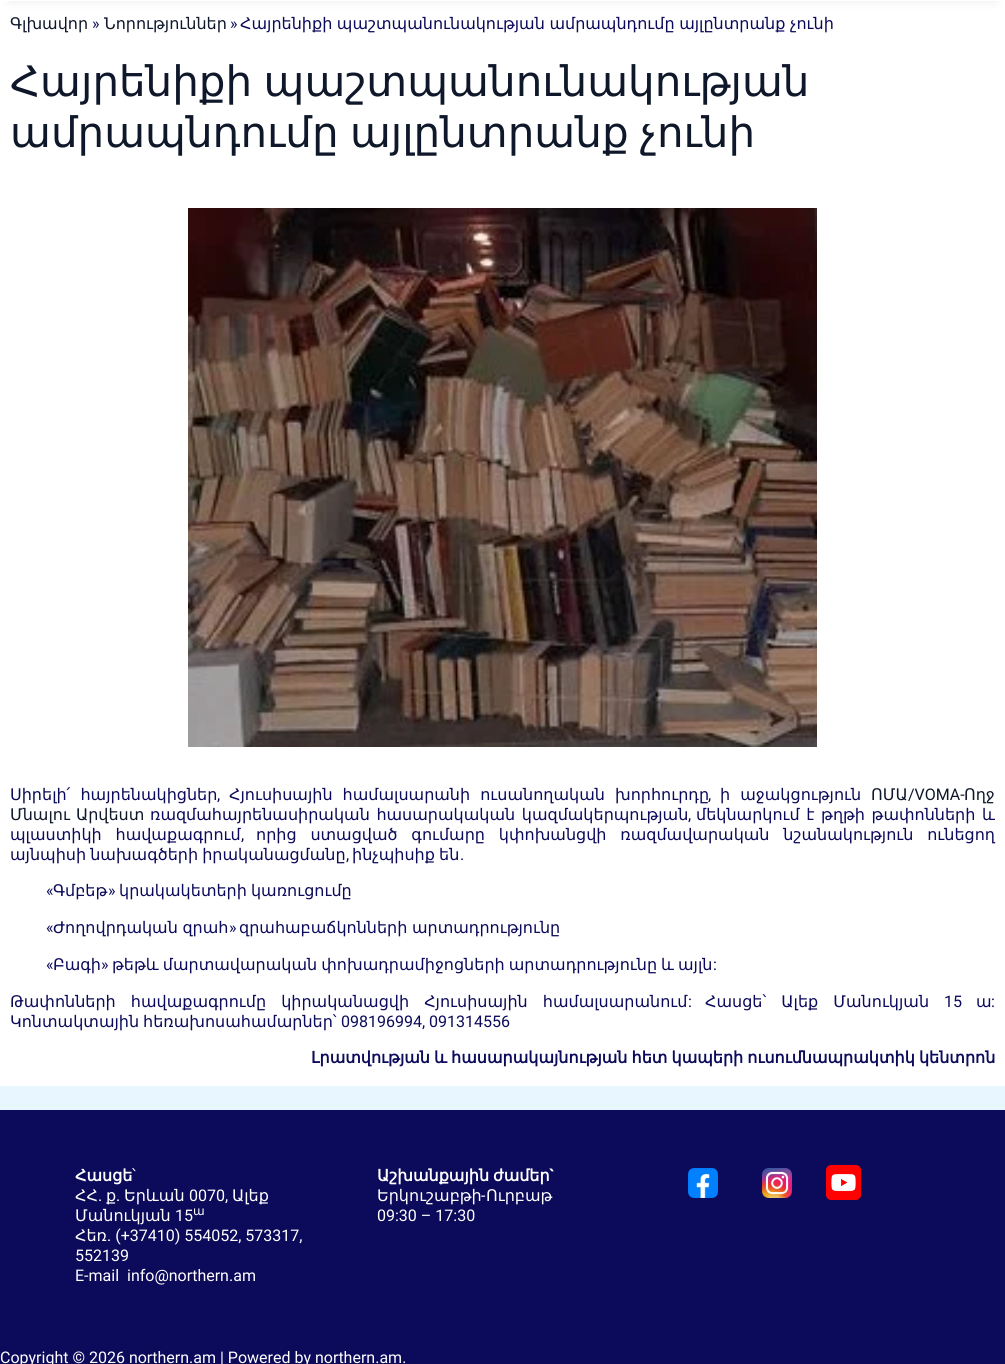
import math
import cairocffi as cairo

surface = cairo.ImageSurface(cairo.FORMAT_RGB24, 1005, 1364)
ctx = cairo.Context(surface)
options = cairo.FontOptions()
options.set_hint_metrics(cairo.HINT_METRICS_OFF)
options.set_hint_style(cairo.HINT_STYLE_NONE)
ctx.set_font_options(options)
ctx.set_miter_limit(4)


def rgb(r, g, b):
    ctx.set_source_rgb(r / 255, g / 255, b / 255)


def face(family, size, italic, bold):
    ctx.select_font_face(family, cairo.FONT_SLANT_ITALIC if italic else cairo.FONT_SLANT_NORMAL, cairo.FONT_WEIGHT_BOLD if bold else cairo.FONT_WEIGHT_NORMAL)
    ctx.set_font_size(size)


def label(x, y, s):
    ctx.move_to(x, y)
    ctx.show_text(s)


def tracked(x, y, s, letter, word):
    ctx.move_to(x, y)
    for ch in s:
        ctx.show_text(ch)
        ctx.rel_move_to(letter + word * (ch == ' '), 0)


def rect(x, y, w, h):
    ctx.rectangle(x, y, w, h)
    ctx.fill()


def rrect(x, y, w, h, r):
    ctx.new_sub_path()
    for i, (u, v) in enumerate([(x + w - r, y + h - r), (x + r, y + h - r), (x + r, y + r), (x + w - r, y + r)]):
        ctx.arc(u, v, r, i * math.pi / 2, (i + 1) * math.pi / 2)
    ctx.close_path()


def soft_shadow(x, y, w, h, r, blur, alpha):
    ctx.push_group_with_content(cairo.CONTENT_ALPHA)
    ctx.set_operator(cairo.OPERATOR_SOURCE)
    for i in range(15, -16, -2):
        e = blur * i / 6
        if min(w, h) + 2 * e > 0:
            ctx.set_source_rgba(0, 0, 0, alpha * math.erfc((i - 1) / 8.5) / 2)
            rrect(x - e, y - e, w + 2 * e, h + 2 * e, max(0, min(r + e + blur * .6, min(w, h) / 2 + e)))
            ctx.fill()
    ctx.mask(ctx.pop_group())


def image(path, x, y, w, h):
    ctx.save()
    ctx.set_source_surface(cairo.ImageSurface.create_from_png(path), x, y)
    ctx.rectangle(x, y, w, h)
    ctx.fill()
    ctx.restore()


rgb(231, 246, 255)
ctx.paint()
rgb(255, 255, 255)
rect(0, 1, 1005, 1085)
rgb(33, 35, 38)
soft_shadow(10, -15, 985, 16, 0, 5, 0.1)
rgb(255, 255, 255)
rect(0, 0, 1005, 1)
face('DejaVu Sans', 16, 0, 0)
rgb(15, 23, 42)
label(10, 29, 'Գլխավոր')
face('Roboto', 16, 0, 0)
rgb(12, 10, 90)
label(92, 29, '»')
face('DejaVu Sans', 16, 0, 0)
rgb(15, 23, 42)
label(104, 29, 'Նորություններ')
face('Roboto', 16, 0, 0)
rgb(12, 10, 90)
label(230, 29, '»')
face('DejaVu Sans', 16, 0, 0)
tracked(240, 29, 'Հայրենիքի պաշտպանունակության ամրապնդումը այլընտրանք չունի', 0, -0.5)
face('DejaVu Sans', 42, 0, 0)
rgb(15, 23, 42)
tracked(10, 96, 'Հայրենիքի պաշտպանունակության', 0, -2)
tracked(10, 147, 'ամրապնդումը այլընտրանք չունի', 0, -2)
image('image0.png', 188, 208, 629, 539)
face('DejaVu Sans', 16, 0, 0)
rgb(12, 10, 90)
tracked(10, 800, 'Սիրելի՛ հայրենակիցներ', 0, 5)
face('Roboto', 16, 0, 0)
label(217, 800, ',')
face('DejaVu Sans', 16, 0, 0)
tracked(229, 800, 'Հյուսիսային համալսարանի ուսանողական խորհուրդը', 0, 5)
face('Roboto', 16, 0, 0)
label(708, 800, ',')
face('DejaVu Sans', 16, 0, 0)
tracked(720, 800, 'ի աջակցություն', 0, 5)
rgb(15, 23, 42)
label(871, 800, 'ՈՄԱ')
face('Roboto', 16, 0, 0)
label(908, 800, '/VOMA-')
face('DejaVu Sans', 16, 0, 0)
label(964, 800, 'Ողջ')
tracked(10, 820, 'Մնալու Արվեստ', 0, 1)
rgb(12, 10, 90)
tracked(150, 820, 'ռազմահայրենասիրական հասարակական կազմակերպության', 0, 1.5)
face('Roboto', 16, 0, 0)
label(688, 820, ',')
face('DejaVu Sans', 16, 0, 0)
tracked(696, 820, 'մեկնարկում է թղթի թափոնների և', 0, 1.5)
tracked(10, 840, 'պլաստիկի հավաքագրում', 0, 8.75)
face('Roboto', 16, 0, 0)
label(241, 840, ',')
face('DejaVu Sans', 16, 0, 0)
tracked(256, 840, 'որից ստացված գումարը կփոխանցվի ռազմավարական նշանակություն ունեցող', 0, 8.75)
tracked(10, 860, 'այնպիսի նախագծերի իրականացմանը', 0, -1)
face('Roboto', 16, 0, 0)
label(346, 860, ',')
face('DejaVu Sans', 16, 0, 0)
tracked(352, 860, 'ինչպիսիք են', 0, -1)
face('Roboto', 16, 0, 0)
label(460, 860, '.')
label(46, 896, '«')
face('DejaVu Sans', 16, 0, 0)
label(53, 896, 'Գմբեթ')
face('Roboto', 16, 0, 0)
label(108, 896, '»')
face('DejaVu Sans', 16, 0, 0)
tracked(119, 896, 'կրակակետերի կառուցումը', 0, -1)
face('Roboto', 16, 0, 0)
label(46, 933, '«')
face('DejaVu Sans', 16, 0, 0)
tracked(53, 933, 'Ժողովրդական զրահ', 0, -0.5)
face('Roboto', 16, 0, 0)
label(229, 933, '»')
face('DejaVu Sans', 16, 0, 0)
tracked(239, 933, 'զրահաբաճկոնների արտադրությունը', 0, -0.5)
face('Roboto', 16, 0, 0)
label(46, 970, '«')
face('DejaVu Sans', 16, 0, 0)
label(53, 970, 'Բագի')
face('Roboto', 16, 0, 0)
label(101, 970, '»')
face('DejaVu Sans', 16, 0, 0)
tracked(112, 970, 'թեթև մարտավարական փոխադրամիջոցների արտադրությունը և', 0, -1)
label(678, 970, 'այլն')
face('Roboto', 16, 0, 0)
label(713, 970, ':')
face('DejaVu Sans', 16, 0, 0)
tracked(10, 1007, 'Թափոնների հավաքագրումը կիրականացվի Հյուսիսային համալսարանում', 0, 10)
face('Roboto', 16, 0, 0)
label(688, 1007, ':')
face('DejaVu Sans', 16, 0, 0)
tracked(705, 1007, 'Հասցե՝ Ալեք Մանուկյան', 0, 10)
face('Roboto', 16, 0, 0)
label(944, 1007, '15')
face('DejaVu Sans', 16, 0, 0)
label(976, 1007, 'ա')
face('Roboto', 16, 0, 0)
label(991, 1007, ':')
face('DejaVu Sans', 16, 0, 0)
label(10, 1027, 'Կոնտակտային')
label(143, 1027, 'հեռախոսահամարներ՝')
face('Roboto', 16, 0, 0)
label(341, 1027, '098196994, 091314556')
face('DejaVu Sans', 16, 0, 1)
tracked(311, 1063, 'Լրատվության և հասարակայնության հետ կապերի ուսումնապրակտիկ կենտրոն', 0, -1)
rect(0, 1110, 1005, 254)
rgb(255, 255, 255)
label(75, 1181, 'Հասցե')
face('DejaVu Sans', 16, 0, 0)
label(132, 1181, '՝')
label(75, 1201, 'ՀՀ')
face('Roboto', 16, 0, 0)
label(98, 1201, '.')
face('DejaVu Sans', 16, 0, 0)
label(106, 1201, 'ք')
face('Roboto', 16, 0, 0)
label(116, 1201, '.')
face('DejaVu Sans', 16, 0, 0)
label(124, 1201, 'Երևան')
face('Roboto', 16, 0, 0)
label(189, 1201, '0070,')
face('DejaVu Sans', 16, 0, 0)
label(232, 1201, 'Ալեք')
label(75, 1221, 'Մանուկյան')
face('Roboto', 16, 0, 0)
label(175, 1221, '15')
face('DejaVu Sans', 12, 0, 0)
label(193, 1215, 'ա')
face('DejaVu Sans', 16, 0, 0)
label(75, 1241, 'Հեռ')
face('Roboto', 16, 0, 0)
label(107, 1241, '. (+37410) 554052, 573317,')
label(75, 1261, '552139')
label(75, 1281, 'E-mail')
label(127, 1281, 'info@northern.am')
face('DejaVu Sans', 16, 0, 1)
tracked(377, 1181, 'Աշխանքային ժամեր', 0, -1)
face('Roboto', 16, 0, 1)
label(549, 1181, '`')
face('DejaVu Sans', 16, 0, 0)
label(377, 1201, 'Երկուշաբթի')
face('Roboto', 16, 0, 0)
label(481, 1201, '-')
face('DejaVu Sans', 16, 0, 0)
label(486, 1201, 'Ուրբաթ')
face('Roboto', 16, 0, 0)
label(377, 1221, '09:30 – 17:30')
image('image1.png', 688, 1168, 30, 30)
image('image2.png', 762, 1168, 30, 30)
image('image3.png', 826, 1165, 35, 35)
label(0, 1363, 'Copyright © 2026 northern.am | Powered by northern.am.')
surface.write_to_png('render.png')
